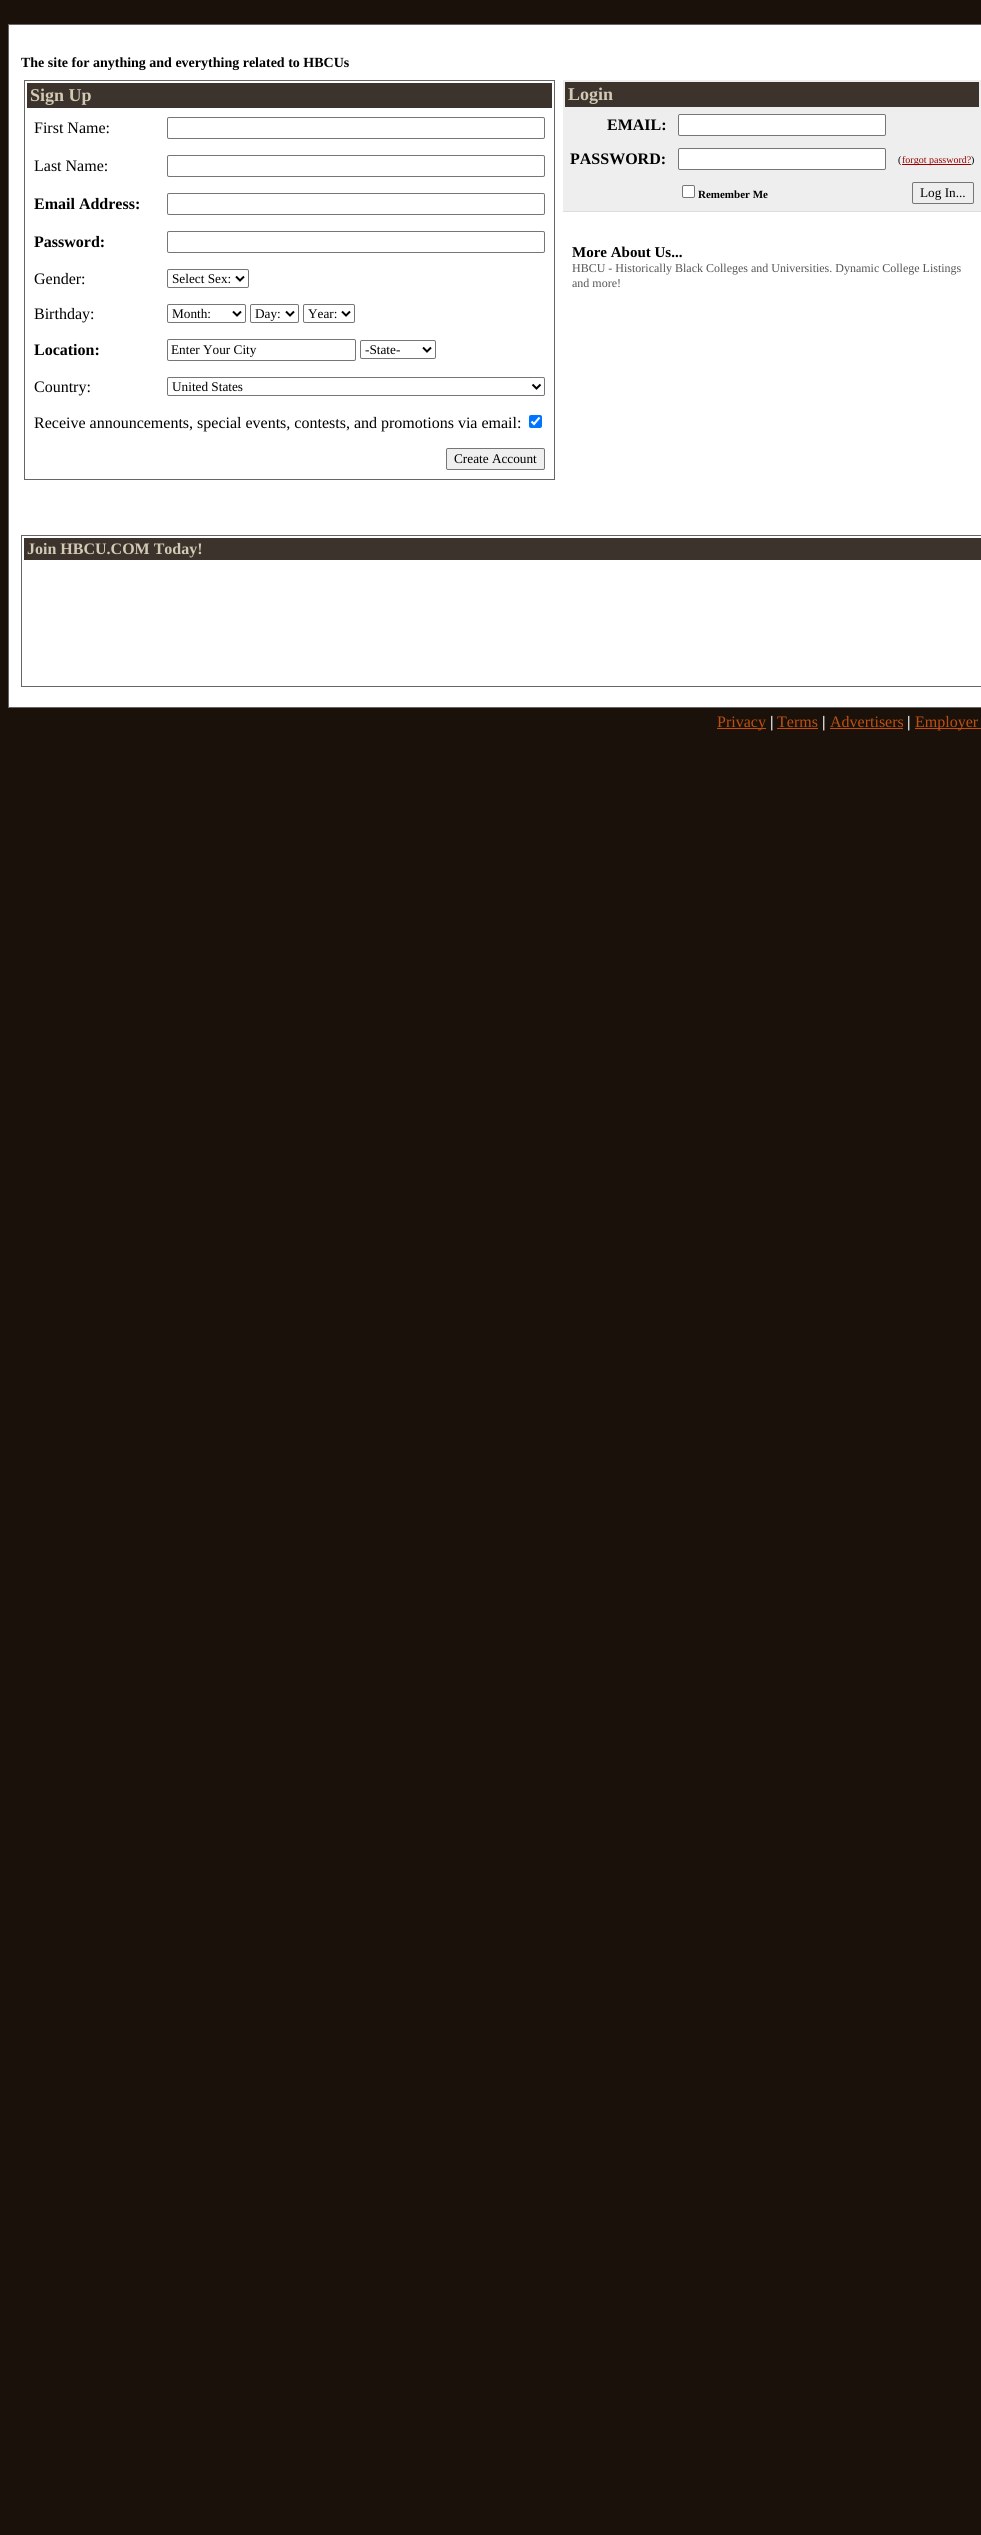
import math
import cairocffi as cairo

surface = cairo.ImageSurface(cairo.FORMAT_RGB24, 981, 2535)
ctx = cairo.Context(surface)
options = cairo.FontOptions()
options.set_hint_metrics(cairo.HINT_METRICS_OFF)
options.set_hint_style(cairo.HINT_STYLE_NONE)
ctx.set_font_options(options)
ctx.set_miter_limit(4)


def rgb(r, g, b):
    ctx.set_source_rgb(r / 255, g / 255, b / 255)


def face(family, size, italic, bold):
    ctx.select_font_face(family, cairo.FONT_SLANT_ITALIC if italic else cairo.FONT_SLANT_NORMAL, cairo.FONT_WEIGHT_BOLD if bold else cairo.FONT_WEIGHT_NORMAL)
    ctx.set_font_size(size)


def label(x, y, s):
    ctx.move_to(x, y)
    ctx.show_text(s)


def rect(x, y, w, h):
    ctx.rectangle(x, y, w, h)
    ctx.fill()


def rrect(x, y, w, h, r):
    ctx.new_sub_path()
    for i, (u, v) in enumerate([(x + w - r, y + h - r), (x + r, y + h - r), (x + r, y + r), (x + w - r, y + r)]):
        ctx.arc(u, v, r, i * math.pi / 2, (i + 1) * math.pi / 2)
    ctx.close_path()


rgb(25, 17, 10)
ctx.paint()
rgb(255, 255, 255)
ctx.rectangle(8.5, 24.5, 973, 683)
ctx.fill_preserve()
rgb(102, 102, 102)
ctx.set_line_width(1)
ctx.stroke()
face('Liberation Serif', 14, 0, 1)
rgb(0, 0, 0)
label(21, 67, 'The site for anything and everything related to HBCUs')
ctx.rectangle(24.5, 80.5, 530, 399)
rgb(102, 102, 102)
ctx.stroke()
rgb(59, 51, 44)
rect(27, 83, 525, 25)
face('Liberation Serif', 18, 0, 1)
rgb(211, 202, 182)
label(30, 101, 'Sign Up')
face('Liberation Serif', 16, 0, 0)
rgb(0, 0, 0)
label(34, 133, 'First Name:')
rrect(167.5, 117.5, 377, 21, 1.5)
rgb(118, 118, 118)
ctx.stroke()
rgb(0, 0, 0)
label(34, 171, 'Last Name:')
rrect(167.5, 155.5, 377, 21, 1.5)
rgb(118, 118, 118)
ctx.stroke()
face('Liberation Serif', 16, 0, 1)
rgb(0, 0, 0)
label(34, 209, 'Email Address:')
rrect(167.5, 193.5, 377, 21, 1.5)
rgb(118, 118, 118)
ctx.stroke()
rgb(0, 0, 0)
label(34, 247, 'Password:')
rrect(167.5, 231.5, 377, 21, 1.5)
rgb(118, 118, 118)
ctx.stroke()
face('Liberation Serif', 16, 0, 0)
rgb(0, 0, 0)
label(34, 284, 'Gender:')
rrect(167.5, 269.5, 81, 18, 1.5)
rgb(118, 118, 118)
ctx.stroke()
ctx.new_path()
ctx.move_to(236, 276.5)
ctx.line_to(240, 280.5)
ctx.line_to(244, 276.5)
rgb(0, 0, 0)
ctx.set_line_width(2)
ctx.stroke()
face('Liberation Serif', 13.25, 0, 0)
label(172, 283, 'Select Sex:')
face('Liberation Serif', 16, 0, 0)
label(34, 319, 'Birthday:')
rrect(167.5, 304.5, 78, 18, 1.5)
rgb(118, 118, 118)
ctx.set_line_width(1)
ctx.stroke()
ctx.new_path()
ctx.move_to(233, 311.5)
ctx.line_to(237, 315.5)
ctx.line_to(241, 311.5)
rgb(0, 0, 0)
ctx.set_line_width(2)
ctx.stroke()
face('Liberation Serif', 13.25, 0, 0)
label(172, 318, 'Month:')
rrect(250.5, 304.5, 48, 18, 1.5)
rgb(118, 118, 118)
ctx.set_line_width(1)
ctx.stroke()
ctx.new_path()
ctx.move_to(286, 311.5)
ctx.line_to(290, 315.5)
ctx.line_to(294, 311.5)
rgb(0, 0, 0)
ctx.set_line_width(2)
ctx.stroke()
label(255, 318, 'Day:')
rrect(303.5, 304.5, 51, 18, 1.5)
rgb(118, 118, 118)
ctx.set_line_width(1)
ctx.stroke()
ctx.new_path()
ctx.move_to(342, 311.5)
ctx.line_to(346, 315.5)
ctx.line_to(350, 311.5)
rgb(0, 0, 0)
ctx.set_line_width(2)
ctx.stroke()
label(308, 318, 'Year:')
face('Liberation Serif', 16, 0, 1)
label(34, 355, 'Location:')
rrect(167.5, 339.5, 188, 21, 1.5)
rgb(118, 118, 118)
ctx.set_line_width(1)
ctx.stroke()
face('Liberation Serif', 13.25, 0, 0)
rgb(0, 0, 0)
label(171, 354, 'Enter Your City')
rrect(360.5, 340.5, 75, 18, 1.5)
rgb(118, 118, 118)
ctx.stroke()
ctx.new_path()
ctx.move_to(423, 347.5)
ctx.line_to(427, 351.5)
ctx.line_to(431, 347.5)
rgb(0, 0, 0)
ctx.set_line_width(2)
ctx.stroke()
label(365, 354, '-State-')
face('Liberation Serif', 16, 0, 0)
label(34, 392, 'Country:')
rrect(167.5, 377.5, 377, 18, 1.5)
rgb(118, 118, 118)
ctx.set_line_width(1)
ctx.stroke()
ctx.new_path()
ctx.move_to(532.5, 384.5)
ctx.line_to(536.5, 388.5)
ctx.line_to(540.5, 384.5)
rgb(0, 0, 0)
ctx.set_line_width(2)
ctx.stroke()
face('Liberation Serif', 13.25, 0, 0)
label(172, 391, 'United States')
face('Liberation Serif', 16, 0, 0)
label(34, 428, 'Receive announcements, special events, contests, and promotions via email:')
rgb(0, 117, 255)
rrect(529, 415, 13, 13, 2)
ctx.fill()
ctx.new_path()
ctx.move_to(531.5, 421.5)
ctx.line_to(534, 424)
ctx.line_to(539.5, 417.5)
rgb(255, 255, 255)
ctx.set_line_width(2.1)
ctx.stroke()
rgb(239, 239, 239)
rrect(446.5, 448.5, 98, 21, 1.5)
ctx.fill_preserve()
rgb(118, 118, 118)
ctx.set_line_width(1)
ctx.stroke()
face('Liberation Serif', 13.25, 0, 0)
rgb(0, 0, 0)
label(454, 463, 'Create Account')
rgb(238, 238, 238)
rect(563, 80, 418, 131)
rgb(221, 221, 221)
rect(563, 211, 418, 1)
rgb(59, 51, 44)
rect(565, 82, 414, 25)
face('Liberation Serif', 18, 0, 1)
rgb(211, 202, 182)
label(568, 100, 'Login')
face('Liberation Serif', 16, 0, 1)
rgb(0, 0, 0)
label(607, 130, 'EMAIL:')
rgb(255, 255, 255)
rrect(678.5, 114.5, 207, 21, 1.5)
ctx.fill_preserve()
rgb(118, 118, 118)
ctx.stroke()
rgb(0, 0, 0)
label(570, 164, 'PASSWORD:')
rgb(255, 255, 255)
rrect(678.5, 148.5, 207, 21, 1.5)
ctx.fill_preserve()
rgb(118, 118, 118)
ctx.stroke()
face('Liberation Serif', 10, 0, 0)
rgb(0, 0, 0)
label(898, 163, '(')
rgb(153, 0, 0)
rect(902, 164, 69, 1)
label(902, 163, 'forgot password?')
rgb(0, 0, 0)
label(971, 163, ')')
rgb(255, 255, 255)
rrect(682.5, 185.5, 12, 12, 1.5)
ctx.fill_preserve()
rgb(118, 118, 118)
ctx.stroke()
face('Liberation Serif', 11, 0, 1)
rgb(0, 0, 0)
label(698, 198, 'Remember Me')
rrect(912.5, 182.5, 61, 21, 1.5)
rgb(118, 118, 118)
ctx.stroke()
face('Liberation Serif', 13.25, 0, 0)
rgb(0, 0, 0)
label(920, 197, 'Log In...')
face('Liberation Serif', 15, 0, 1)
label(572, 257, 'More About Us...')
face('Liberation Serif', 12, 0, 0)
rgb(85, 85, 85)
label(572, 272, 'HBCU - Historically Black Colleges and Universities. Dynamic College Listings')
label(572, 287, 'and more!')
ctx.rectangle(21.5, 535.5, 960, 151)
rgb(102, 102, 102)
ctx.stroke()
rgb(59, 51, 44)
rect(24, 538, 957, 22)
face('Liberation Serif', 16, 0, 1)
rgb(211, 202, 182)
label(27, 554, 'Join HBCU.COM Today!')
rgb(193, 80, 16)
rect(717, 728, 49, 1)
face('Liberation Serif', 16, 0, 0)
label(717, 727, 'Privacy')
face('Liberation Serif', 16, 0, 1)
rgb(255, 255, 255)
label(770, 727, '|')
face('Liberation Serif', 16, 0, 0)
rgb(193, 80, 16)
label(777, 727, 'Terms')
rect(777, 728, 41, 1)
face('Liberation Serif', 16, 0, 1)
rgb(255, 255, 255)
label(822, 727, '|')
face('Liberation Serif', 16, 0, 0)
rgb(193, 80, 16)
label(830, 727, 'Advertisers')
rect(830, 728, 73, 1)
face('Liberation Serif', 16, 0, 1)
rgb(255, 255, 255)
label(907, 727, '|')
rgb(193, 80, 16)
rect(915, 728, 66, 1)
face('Liberation Serif', 16, 0, 0)
label(915, 727, 'Employer')
surface.write_to_png('render.png')
